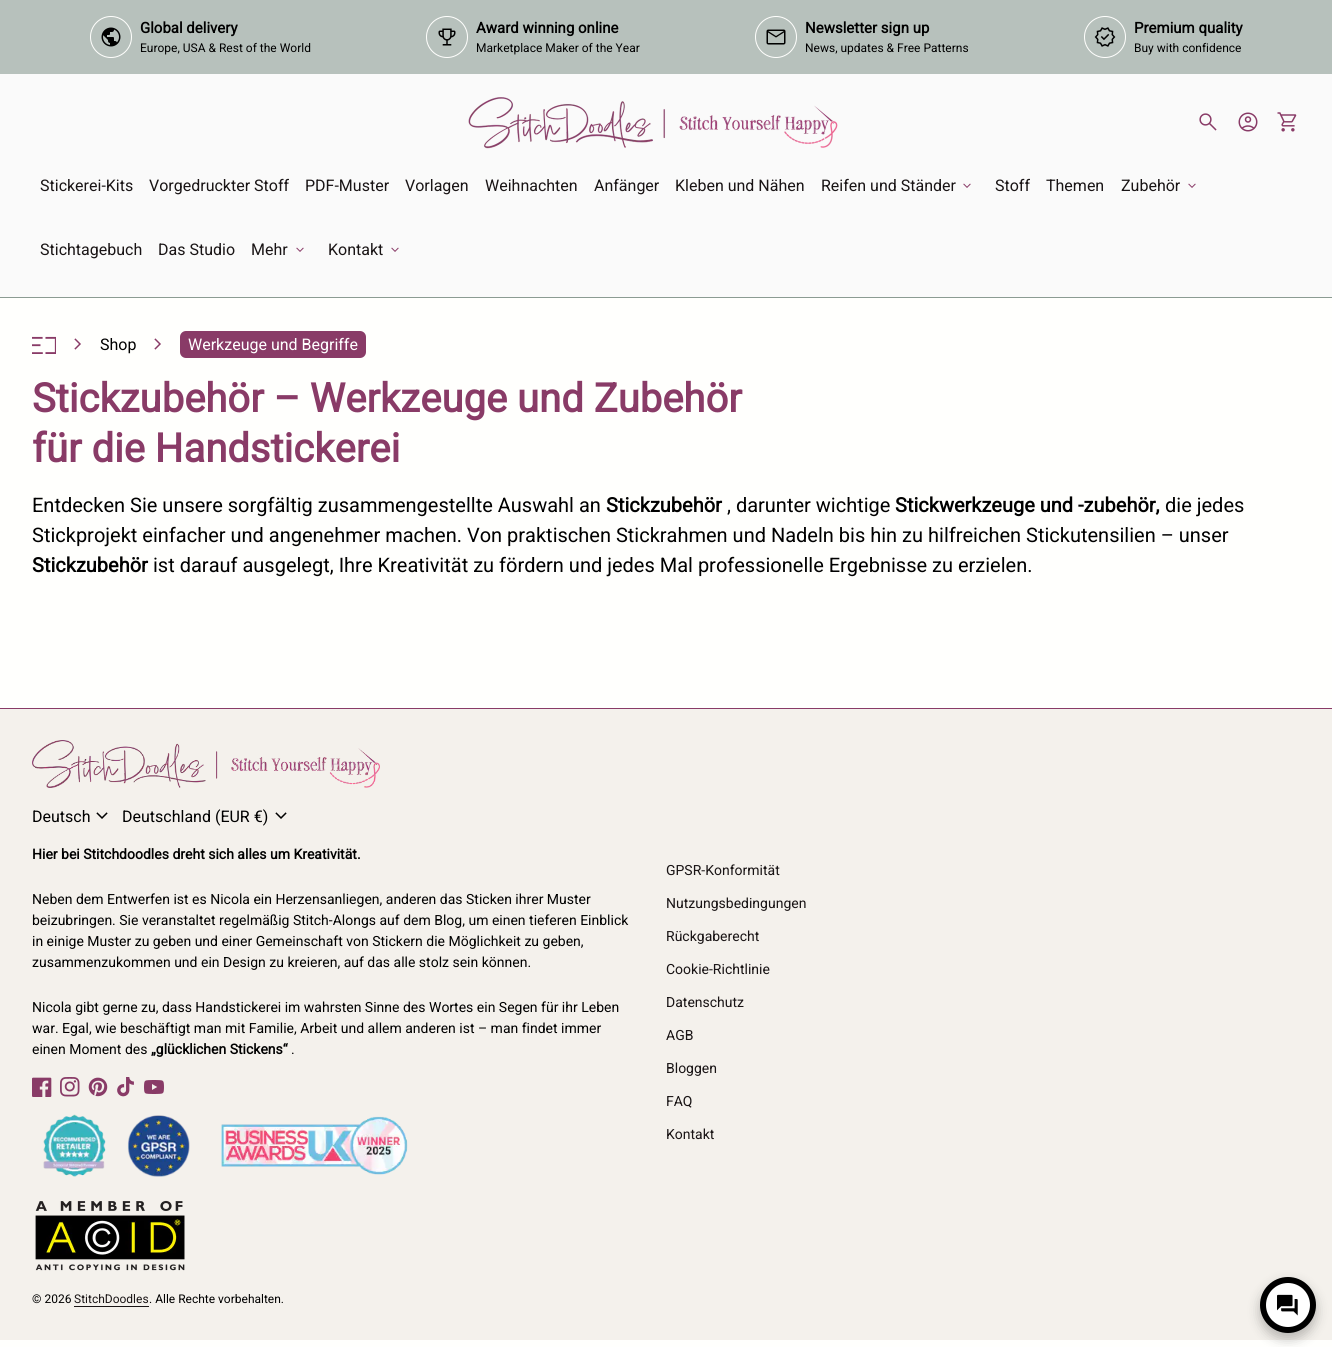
import math
import cairocffi as cairo

surface = cairo.ImageSurface(cairo.FORMAT_RGB24, 1332, 1347)
ctx = cairo.Context(surface)
options = cairo.FontOptions()
options.set_hint_metrics(cairo.HINT_METRICS_OFF)
options.set_hint_style(cairo.HINT_STYLE_NONE)
ctx.set_font_options(options)
ctx.set_miter_limit(4)


def rgb(r, g, b):
    ctx.set_source_rgb(r / 255, g / 255, b / 255)


def face(family, size, italic, bold):
    ctx.select_font_face(family, cairo.FONT_SLANT_ITALIC if italic else cairo.FONT_SLANT_NORMAL, cairo.FONT_WEIGHT_BOLD if bold else cairo.FONT_WEIGHT_NORMAL)
    ctx.set_font_size(size)


def label(x, y, s):
    ctx.move_to(x, y)
    ctx.show_text(s)


def rect(x, y, w, h):
    ctx.rectangle(x, y, w, h)
    ctx.fill()


def rrect(x, y, w, h, r):
    ctx.new_sub_path()
    for i, (u, v) in enumerate([(x + w - r, y + h - r), (x + r, y + h - r), (x + r, y + r), (x + w - r, y + r)]):
        ctx.arc(u, v, r, i * math.pi / 2, (i + 1) * math.pi / 2)
    ctx.close_path()


def soft_shadow(x, y, w, h, r, blur, alpha):
    ctx.push_group_with_content(cairo.CONTENT_ALPHA)
    ctx.set_operator(cairo.OPERATOR_SOURCE)
    for i in range(15, -16, -2):
        e = blur * i / 6
        if min(w, h) + 2 * e > 0:
            ctx.set_source_rgba(0, 0, 0, alpha * math.erfc((i - 1) / 8.5) / 2)
            rrect(x - e, y - e, w + 2 * e, h + 2 * e, max(0, min(r + e + blur * .6, min(w, h) / 2 + e)))
            ctx.fill()
    ctx.mask(ctx.pop_group())


def image(path, x, y, w, h):
    ctx.save()
    ctx.set_source_surface(cairo.ImageSurface.create_from_png(path), x, y)
    ctx.rectangle(x, y, w, h)
    ctx.fill()
    ctx.restore()


rgb(255, 255, 253)
ctx.paint()
rgb(183, 193, 188)
rect(0, 0, 1332, 74)
ctx.arc(111, 37, 20.5, 0, 2 * math.pi)
rgb(255, 255, 253)
ctx.set_line_width(1)
ctx.stroke()
image('image0.png', 101, 27, 20, 20)
face('Roboto', 15, 0, 1)
rgb(0, 0, 0)
label(140, 33, 'Global delivery')
face('Roboto', 12, 0, 0)
label(140, 52, 'Europe, USA & Rest of the World')
ctx.new_path()
ctx.arc(447, 37, 20.5, 0, 2 * math.pi)
rgb(255, 255, 253)
ctx.stroke()
image('image1.png', 438, 28, 18, 18)
face('Roboto', 15, 0, 1)
rgb(0, 0, 0)
label(476, 33, 'Award winning online')
face('Roboto', 12, 0, 0)
label(476, 52, 'Marketplace Maker of the Year')
ctx.new_path()
ctx.arc(776, 37, 20.5, 0, 2 * math.pi)
rgb(255, 255, 253)
ctx.stroke()
image('image2.png', 766, 29, 20, 16)
face('Roboto', 15, 0, 1)
rgb(0, 0, 0)
label(805, 33, 'Newsletter sign up')
face('Roboto', 12, 0, 0)
label(805, 52, 'News, updates & Free Patterns')
ctx.new_path()
ctx.arc(1105, 37, 20.5, 0, 2 * math.pi)
rgb(255, 255, 253)
ctx.stroke()
image('image3.png', 1094, 27, 22, 20)
face('Roboto', 15, 0, 1)
rgb(0, 0, 0)
label(1134, 33, 'Premium quality')
face('Roboto', 12, 0, 0)
label(1134, 52, 'Buy with confidence')
rgb(250, 250, 250)
rect(0, 74, 1332, 223)
image('image4.png', 468, 97, 370, 52)
image('image5.png', 1199, 113, 18, 18)
image('image6.png', 1238, 112, 20, 20)
image('image7.png', 1277, 112, 20, 20)
face('Roboto', 16, 0, 0)
rgb(25, 20, 21)
label(40, 191, 'Stickerei-Kits')
label(149, 191, 'Vorgedruckter Stoff')
label(305, 191, 'PDF-Muster')
label(405, 191, 'Vorlagen')
label(485, 191, 'Weihnachten')
label(594, 191, 'Anfänger')
label(675, 191, 'Kleben und Nähen')
label(821, 191, 'Reifen und Ständer')
image('image8.png', 963, 183, 8, 5)
label(995, 191, 'Stoff')
label(1046, 191, 'Themen')
label(1121, 191, 'Zubehör')
image('image8.png', 1188, 183, 8, 5)
label(40, 255, 'Stichtagebuch')
label(158, 255, 'Das Studio')
label(251, 255, 'Mehr')
image('image8.png', 296, 247, 8, 5)
label(328, 255, 'Kontakt')
image('image8.png', 391, 247, 8, 5)
rgb(139, 155, 146)
rect(0, 297, 1332, 1)
image('image9.png', 32, 336, 24, 18)
image('image10.png', 74, 338, 7, 12)
rgb(0, 0, 0)
label(100, 350, 'Shop')
image('image10.png', 154, 338, 7, 12)
rgb(137, 59, 103)
rrect(180, 331, 186, 27, 6)
ctx.fill()
rgb(255, 255, 255)
label(188, 350, 'Werkzeuge und Begriffe')
face('Roboto', 40, 0, 1)
rgb(137, 59, 103)
label(32, 412, 'Stickzubehör – Werkzeuge und Zubehör')
label(32, 462, 'für die Handstickerei')
face('Roboto', 20, 0, 0)
rgb(0, 0, 0)
label(32, 512, 'Entdecken Sie unsere sorgfältig zusammengestellte Auswahl an')
face('Roboto', 20, 0, 1)
label(606, 512, 'Stickzubehör')
face('Roboto', 20, 0, 0)
label(727, 512, ', darunter wichtige')
face('Roboto', 20, 0, 1)
label(895, 512, 'Stickwerkzeuge und -zubehör,')
face('Roboto', 20, 0, 0)
label(1165, 512, 'die jedes')
label(32, 542, 'Stickprojekt einfacher und angenehmer machen. Von praktischen Stickrahmen und Nadeln bis hin zu hilfreichen Stickutensilien – unser')
face('Roboto', 20, 0, 1)
label(32, 572, 'Stickzubehör')
face('Roboto', 20, 0, 0)
label(153, 572, 'ist darauf ausgelegt, Ihre Kreativität zu fördern und jedes Mal professionelle Ergebnisse zu erzielen.')
rgb(244, 241, 236)
rect(0, 709, 1332, 631)
rgb(137, 59, 103)
rect(0, 708, 1332, 1)
image('image11.png', 32, 740, 348, 48)
face('Roboto', 16, 0, 0)
rgb(0, 0, 0)
label(32, 822, 'Deutsch')
image('image12.png', 96, 812, 12, 7)
label(122, 822, 'Deutschland (EUR €)')
image('image12.png', 275, 812, 12, 7)
face('Roboto', 14, 0, 1)
label(32, 859, 'Hier bei Stitchdoodles dreht sich alles um Kreativität.')
face('Roboto', 14, 0, 0)
label(32, 904, 'Neben dem Entwerfen ist es Nicola ein Herzensanliegen, anderen das Sticken ihrer Muster')
label(32, 925, 'beizubringen. Sie veranstaltet regelmäßig Stitch-Alongs auf dem Blog, um einen tieferen Einblick')
label(32, 946, 'in einige Muster zu geben und einer Gemeinschaft von Stickern die Möglichkeit zu geben,')
label(32, 967, 'zusammenzukommen und ein Design zu kreieren, auf das alle stolz sein können.')
label(32, 1012, 'Nicola gibt gerne zu, dass Handstickerei im wahrsten Sinne des Wortes ein Segen für ihr Leben')
label(32, 1033, 'war. Egal, wie beschäftigt man mit Familie, Arbeit und allem anderen ist – man findet immer')
label(32, 1054, 'einen Moment des')
face('Roboto', 14, 0, 1)
label(151, 1054, '„glücklichen Stickens“')
face('Roboto', 14, 0, 0)
label(291, 1054, '.')
image('image13.png', 32, 1077, 20, 20)
image('image14.png', 60, 1077, 20, 20)
image('image15.png', 88, 1077, 20, 20)
image('image16.png', 117, 1077, 17, 20)
image('image17.png', 144, 1080, 20, 14)
image('image18.png', 43, 1114, 365, 63)
image('image19.png', 35, 1200, 150, 71)
rgb(25, 20, 21)
label(666, 875, 'GPSR-Konformität')
label(666, 908, 'Nutzungsbedingungen')
label(666, 941, 'Rückgaberecht')
label(666, 974, 'Cookie-Richtlinie')
label(666, 1007, 'Datenschutz')
label(666, 1040, 'AGB')
label(666, 1073, 'Bloggen')
label(666, 1106, 'FAQ')
label(666, 1139, 'Kontakt')
face('Roboto', 12, 0, 0)
rgb(0, 0, 0)
label(32, 1303, '© 2026')
rgb(25, 20, 21)
label(74, 1303, 'StitchDoodles')
rect(74, 1306, 75, 1)
rgb(0, 0, 0)
label(149, 1303, '. Alle Rechte vorbehalten.')
rgb(0, 0, 0)
soft_shadow(1260, 1283, 56, 56, 28, 6, 0.25)
rgb(0, 0, 0)
ctx.arc(1288, 1305, 28, 0, 2 * math.pi)
ctx.fill()
rgb(255, 255, 255)
ctx.arc(1288, 1305, 22, 0, 2 * math.pi)
ctx.fill()
image('image20.png', 1277, 1294, 21, 22)
surface.write_to_png('render.png')
